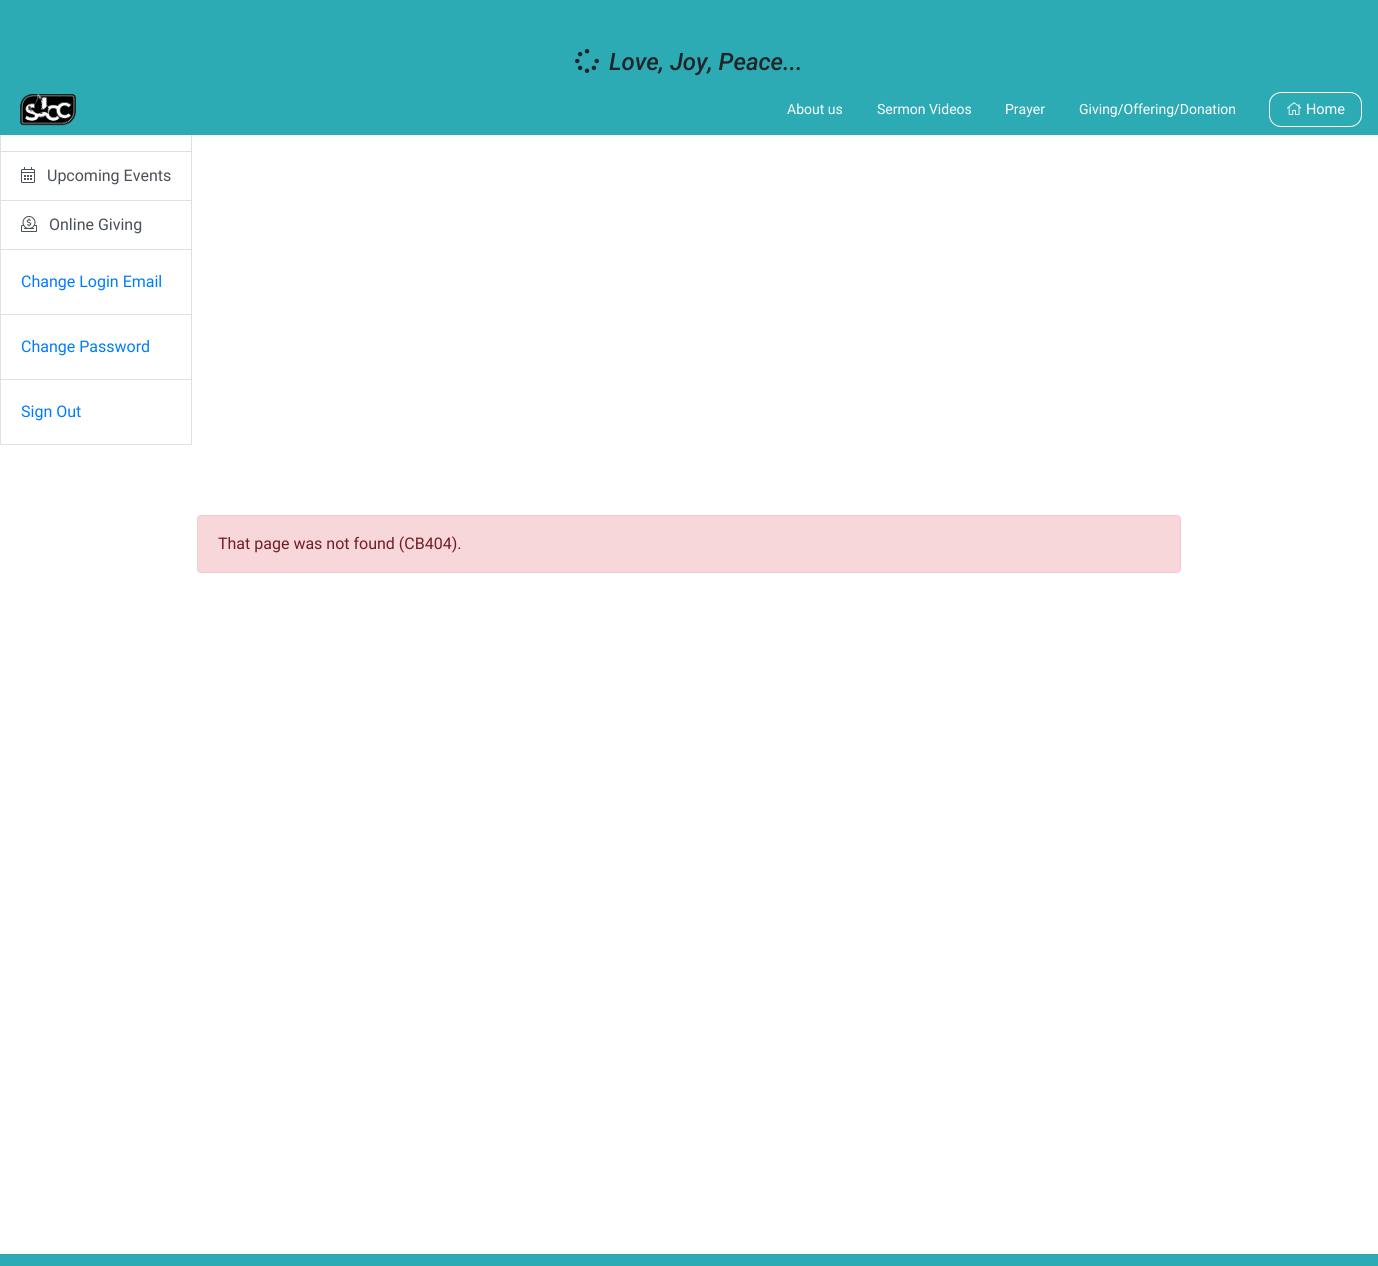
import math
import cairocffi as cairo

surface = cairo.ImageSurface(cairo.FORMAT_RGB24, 1378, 1266)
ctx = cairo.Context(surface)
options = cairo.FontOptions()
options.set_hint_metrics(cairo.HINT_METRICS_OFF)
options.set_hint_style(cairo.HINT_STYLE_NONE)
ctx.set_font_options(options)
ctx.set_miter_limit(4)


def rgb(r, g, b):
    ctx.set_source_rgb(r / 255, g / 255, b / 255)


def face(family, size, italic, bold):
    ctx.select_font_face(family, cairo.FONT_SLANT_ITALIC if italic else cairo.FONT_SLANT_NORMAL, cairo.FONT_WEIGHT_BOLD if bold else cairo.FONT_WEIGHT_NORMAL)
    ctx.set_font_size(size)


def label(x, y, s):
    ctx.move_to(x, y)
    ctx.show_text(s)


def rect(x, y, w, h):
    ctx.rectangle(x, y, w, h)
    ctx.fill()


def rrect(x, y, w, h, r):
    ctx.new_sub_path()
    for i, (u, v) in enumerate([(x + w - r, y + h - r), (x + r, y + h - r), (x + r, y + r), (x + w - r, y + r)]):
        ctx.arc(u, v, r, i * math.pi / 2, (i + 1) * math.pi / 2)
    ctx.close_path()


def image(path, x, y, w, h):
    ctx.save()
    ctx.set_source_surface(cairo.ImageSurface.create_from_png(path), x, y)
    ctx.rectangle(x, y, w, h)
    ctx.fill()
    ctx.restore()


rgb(44, 171, 180)
ctx.paint()
image('image0.png', 575, 49, 24, 24)
face('Roboto Medium', 24, 1, 0)
rgb(33, 37, 41)
label(609, 70, 'Love, Joy, Peace...')
rgb(255, 255, 255)
rect(0, 135, 1378, 1119)
ctx.rectangle(0.5, 102.5, 191, 49)
rgb(223, 223, 223)
ctx.set_line_width(1)
ctx.stroke()
rgb(44, 171, 180)
rect(0, 102, 192, 33)
image('image1.png', 20, 94, 56, 32)
face('Roboto', 14, 0, 0)
rgb(255, 255, 255)
label(787, 114, 'About us')
label(877, 114, 'Sermon Videos')
label(1005, 114, 'Prayer')
label(1079, 114, 'Giving/Offering/Donation')
rrect(1269.5, 92.5, 92, 34, 11.5)
ctx.stroke()
image('image2.png', 1287, 102, 15, 13)
face('Roboto', 14.5, 0, 0)
label(1306, 114, 'Home')
rgb(223, 223, 223)
ctx.new_path()
ctx.move_to(192, 152)
ctx.line_to(192, 201)
ctx.line_to(191, 200)
ctx.line_to(191, 152)
ctx.close_path()
ctx.fill()
ctx.set_source_rgba(0, 0, 0, 0.12)
ctx.new_path()
ctx.move_to(192, 201)
ctx.line_to(0, 201)
ctx.line_to(1, 200)
ctx.line_to(191, 200)
ctx.close_path()
ctx.fill()
ctx.new_path()
ctx.move_to(0, 201)
ctx.line_to(0, 152)
ctx.line_to(1, 152)
ctx.line_to(1, 200)
ctx.close_path()
ctx.fill()
image('image3.png', 21, 167, 14, 16)
face('Roboto', 16, 0, 0)
rgb(73, 80, 87)
label(47, 181, 'Upcoming Events')
rgb(223, 223, 223)
ctx.new_path()
ctx.move_to(192, 201)
ctx.line_to(192, 250)
ctx.line_to(191, 249)
ctx.line_to(191, 201)
ctx.close_path()
ctx.fill()
ctx.set_source_rgba(0, 0, 0, 0.12)
ctx.new_path()
ctx.move_to(192, 250)
ctx.line_to(0, 250)
ctx.line_to(1, 249)
ctx.line_to(191, 249)
ctx.close_path()
ctx.fill()
ctx.new_path()
ctx.move_to(0, 250)
ctx.line_to(0, 201)
ctx.line_to(1, 201)
ctx.line_to(1, 249)
ctx.close_path()
ctx.fill()
image('image4.png', 21, 216, 16, 16)
rgb(73, 80, 87)
label(49, 230, 'Online Giving')
rgb(223, 223, 223)
ctx.new_path()
ctx.move_to(192, 250)
ctx.line_to(192, 315)
ctx.line_to(191, 314)
ctx.line_to(191, 250)
ctx.close_path()
ctx.fill()
ctx.set_source_rgba(0, 0, 0, 0.12)
ctx.new_path()
ctx.move_to(192, 315)
ctx.line_to(0, 315)
ctx.line_to(1, 314)
ctx.line_to(191, 314)
ctx.close_path()
ctx.fill()
ctx.new_path()
ctx.move_to(0, 315)
ctx.line_to(0, 250)
ctx.line_to(1, 250)
ctx.line_to(1, 314)
ctx.close_path()
ctx.fill()
rgb(0, 123, 255)
label(21, 287, 'Change Login Email')
rgb(223, 223, 223)
ctx.new_path()
ctx.move_to(192, 315)
ctx.line_to(192, 380)
ctx.line_to(191, 379)
ctx.line_to(191, 315)
ctx.close_path()
ctx.fill()
ctx.set_source_rgba(0, 0, 0, 0.12)
ctx.new_path()
ctx.move_to(192, 380)
ctx.line_to(0, 380)
ctx.line_to(1, 379)
ctx.line_to(191, 379)
ctx.close_path()
ctx.fill()
ctx.new_path()
ctx.move_to(0, 380)
ctx.line_to(0, 315)
ctx.line_to(1, 315)
ctx.line_to(1, 379)
ctx.close_path()
ctx.fill()
rgb(0, 123, 255)
label(21, 352, 'Change Password')
rgb(223, 223, 223)
ctx.new_path()
ctx.move_to(192, 380)
ctx.line_to(192, 445)
ctx.line_to(191, 444)
ctx.line_to(191, 380)
ctx.close_path()
ctx.fill()
ctx.set_source_rgba(0, 0, 0, 0.12)
ctx.new_path()
ctx.move_to(192, 445)
ctx.line_to(0, 445)
ctx.line_to(1, 444)
ctx.line_to(191, 444)
ctx.close_path()
ctx.fill()
ctx.new_path()
ctx.move_to(0, 445)
ctx.line_to(0, 380)
ctx.line_to(1, 380)
ctx.line_to(1, 444)
ctx.close_path()
ctx.fill()
rgb(0, 123, 255)
label(21, 417, 'Sign Out')
rgb(248, 215, 218)
rrect(197.5, 515.5, 983, 57, 3.5)
ctx.fill_preserve()
rgb(245, 198, 203)
ctx.stroke()
rgb(114, 28, 36)
label(218, 549, 'That page was not found (CB404).')
surface.write_to_png('render.png')
